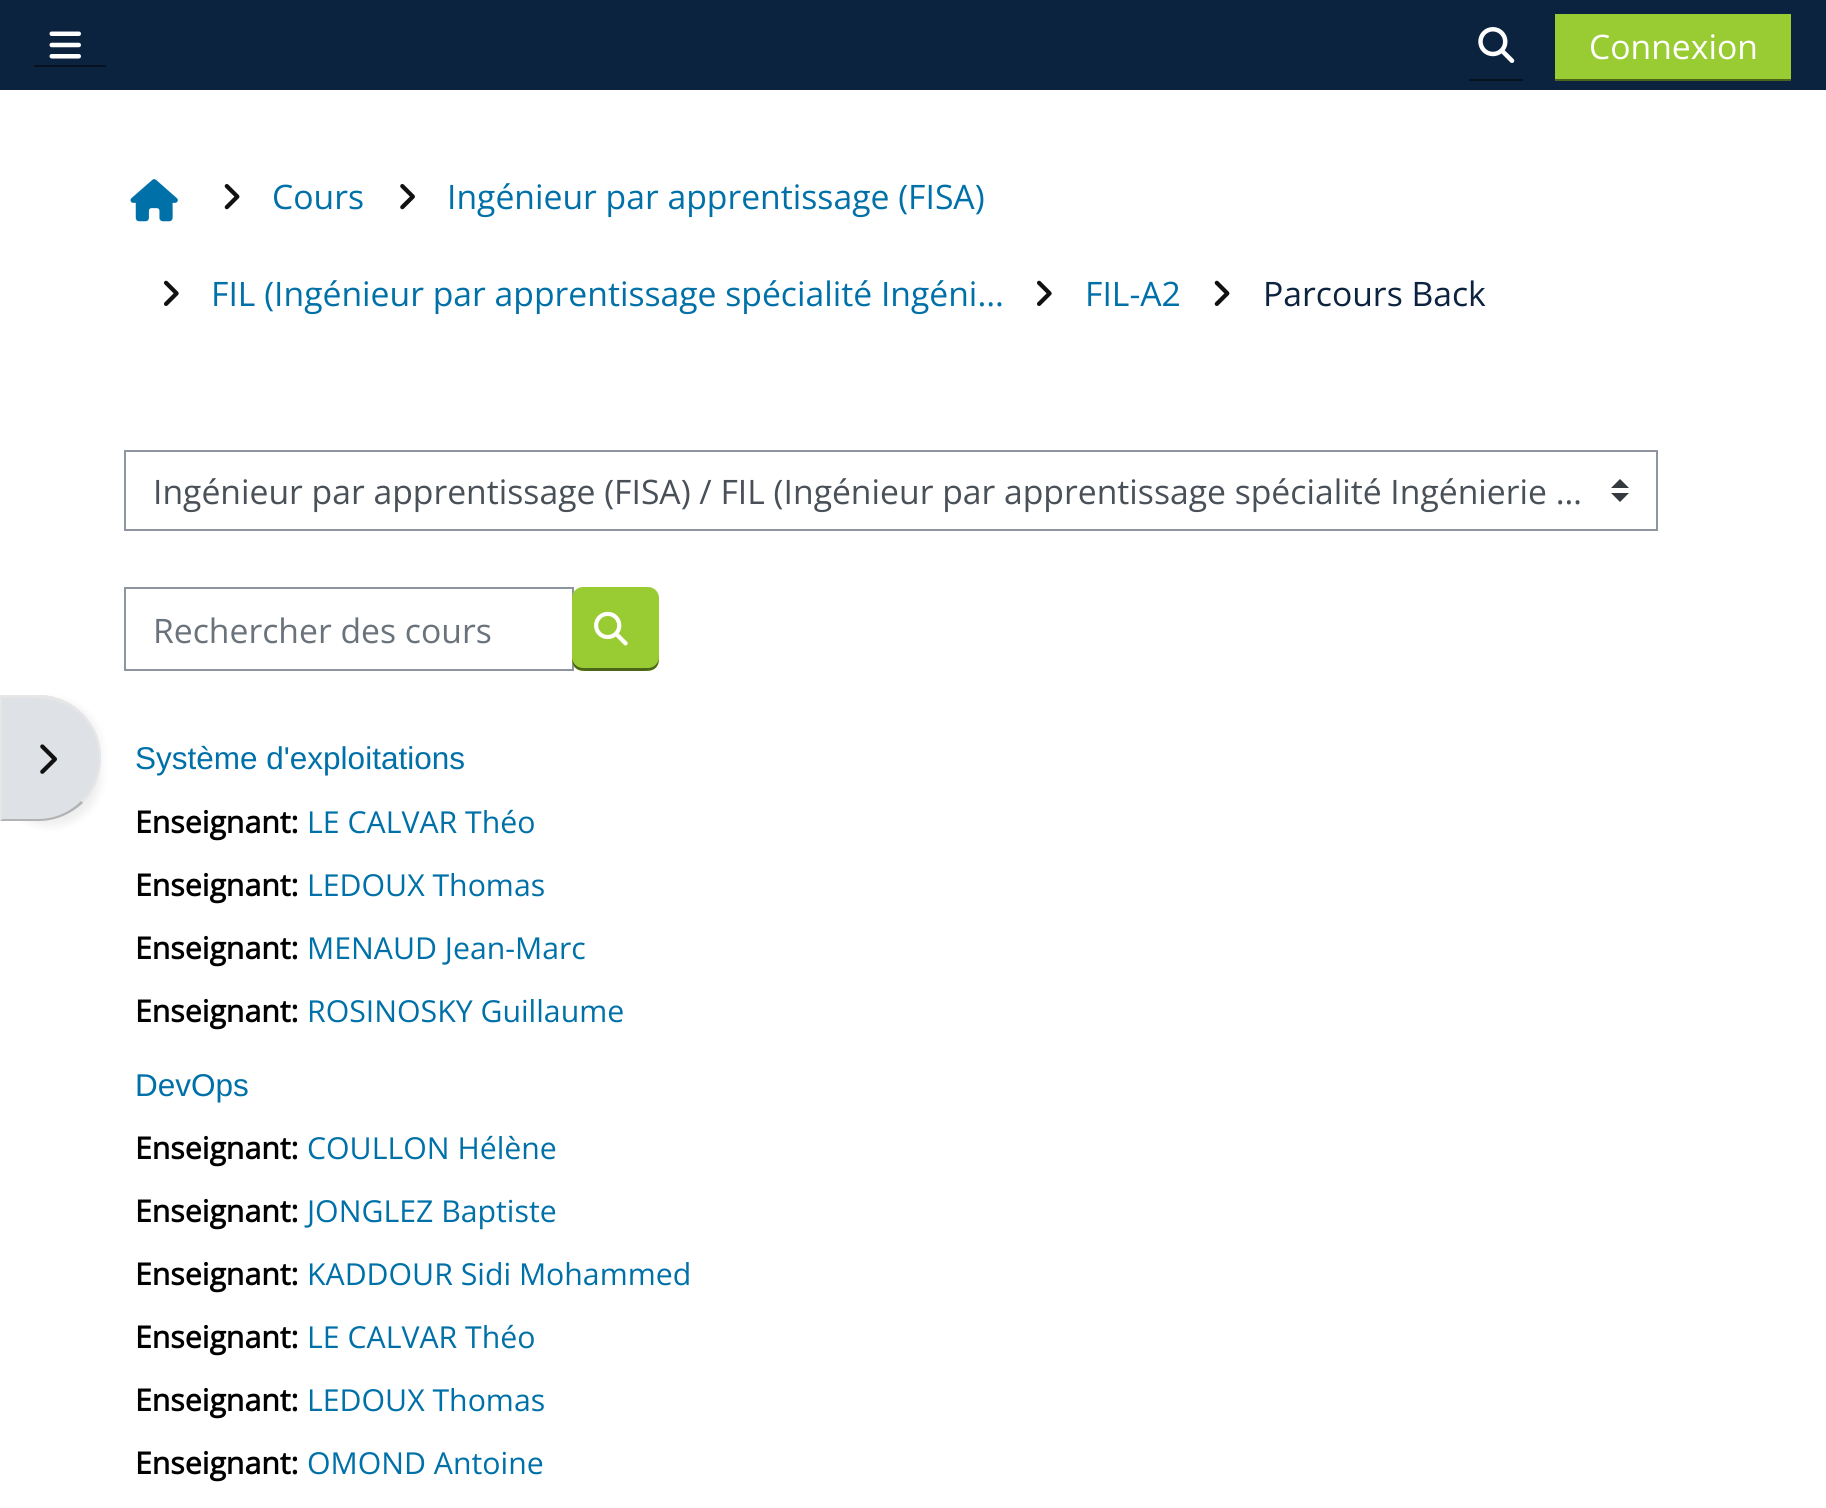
import math
import cairocffi as cairo

surface = cairo.ImageSurface(cairo.FORMAT_RGB24, 1826, 1508)
ctx = cairo.Context(surface)
options = cairo.FontOptions()
options.set_hint_metrics(cairo.HINT_METRICS_OFF)
options.set_hint_style(cairo.HINT_STYLE_NONE)
ctx.set_font_options(options)
ctx.set_miter_limit(4)


def rgb(r, g, b):
    ctx.set_source_rgb(r / 255, g / 255, b / 255)


def face(family, size, italic, bold):
    ctx.select_font_face(family, cairo.FONT_SLANT_ITALIC if italic else cairo.FONT_SLANT_NORMAL, cairo.FONT_WEIGHT_BOLD if bold else cairo.FONT_WEIGHT_NORMAL)
    ctx.set_font_size(size)


def label(x, y, s):
    ctx.move_to(x, y)
    ctx.show_text(s)


def rect(x, y, w, h):
    ctx.rectangle(x, y, w, h)
    ctx.fill()


def rrect(x, y, w, h, r):
    ctx.new_sub_path()
    for i, (u, v) in enumerate([(x + w - r, y + h - r), (x + r, y + h - r), (x + r, y + r), (x + w - r, y + r)]):
        ctx.arc(u, v, r, i * math.pi / 2, (i + 1) * math.pi / 2)
    ctx.close_path()


def soft_shadow(x, y, w, h, r, blur, alpha):
    ctx.push_group_with_content(cairo.CONTENT_ALPHA)
    ctx.set_operator(cairo.OPERATOR_SOURCE)
    for i in range(15, -16, -2):
        e = blur * i / 6
        if min(w, h) + 2 * e > 0:
            ctx.set_source_rgba(0, 0, 0, alpha * math.erfc((i - 1) / 8.5) / 2)
            rrect(x - e, y - e, w + 2 * e, h + 2 * e, max(0, min(r + e + blur * .6, min(w, h) / 2 + e)))
            ctx.fill()
    ctx.mask(ctx.pop_group())


def image(path, x, y, w, h):
    ctx.save()
    ctx.set_source_surface(cairo.ImageSurface.create_from_png(path), x, y)
    ctx.rectangle(x, y, w, h)
    ctx.fill()
    ctx.restore()


rgb(255, 255, 255)
ctx.paint()
rgb(12, 35, 64)
rect(0, 0, 1826, 90)
rgb(6, 18, 32)
rect(34, 65, 72, 2)
image('image0.png', 49, 31, 32, 28)
rect(1469, 79, 54, 2)
image('image1.png', 1478, 27, 37, 36)
rgb(153, 204, 51)
rect(1555, 14, 236, 65)
rgb(77, 102, 26)
rect(1555, 79, 236, 2)
face('Open Sans', 33.7, 0, 0)
rgb(255, 255, 255)
label(1589, 59, 'Connexion')
rgb(0, 0, 0)
soft_shadow(0, 700, 101, 126, 63, 4.5, 0.07)
rgb(222, 226, 230)
ctx.new_path()
ctx.move_to(0, 695)
ctx.line_to(38, 695)
ctx.curve_to(73, 695, 101, 723, 101, 758)
ctx.curve_to(101, 793, 73, 821, 38, 821)
ctx.line_to(0, 821)
ctx.close_path()
ctx.fill()
rgb(230, 230, 230)
ctx.new_path()
ctx.move_to(0, 695)
ctx.line_to(44, 695)
ctx.curve_to(59, 697, 73, 703, 83, 714)
ctx.line_to(81, 715)
ctx.curve_to(59, 694, 31, 698, 3, 698)
ctx.close_path()
ctx.fill()
ctx.new_path()
ctx.move_to(83, 714)
ctx.curve_to(107, 738, 107, 779, 83, 803)
ctx.line_to(81, 801)
ctx.curve_to(105, 778, 105, 739, 81, 715)
ctx.close_path()
ctx.fill()
rgb(179, 179, 179)
ctx.new_path()
ctx.move_to(83, 803)
ctx.curve_to(71, 814, 56, 821, 38, 821)
ctx.line_to(0, 821)
ctx.line_to(2, 819)
ctx.line_to(38, 819)
ctx.curve_to(55, 819, 70, 812, 81, 801)
ctx.close_path()
ctx.fill()
rgb(230, 230, 230)
ctx.new_path()
ctx.move_to(2, 698)
ctx.line_to(3, 698)
ctx.line_to(0, 695)
ctx.line_to(0, 821)
ctx.line_to(2, 819)
ctx.close_path()
ctx.fill()
image('image2.png', 40, 744, 17, 30)
image('image3.png', 130, 179, 48, 43)
image('image4.png', 224, 184, 16, 26)
rgb(0, 112, 168)
label(272, 209, 'Cours')
image('image5.png', 400, 184, 15, 26)
label(447, 209, 'Ingénieur par apprentissage (FISA)')
image('image6.png', 164, 280, 15, 26)
label(211, 306, 'FIL (Ingénieur par apprentissage spécialité Ingéni...')
image('image6.png', 1037, 280, 15, 26)
label(1085, 306, 'FIL-A2')
image('image7.png', 1214, 280, 16, 26)
rgb(12, 35, 64)
label(1263, 306, 'Parcours Back')
rgb(52, 58, 64)
ctx.new_path()
ctx.move_to(1620, 479)
ctx.line_to(1611, 488)
ctx.line_to(1629, 488)
ctx.close_path()
ctx.move_to(1620, 502)
ctx.line_to(1611, 493)
ctx.line_to(1629, 493)
ctx.close_path()
ctx.fill()
ctx.rectangle(125, 451, 1532, 79)
rgb(143, 149, 158)
ctx.stroke()
rgb(73, 80, 87)
label(153, 504, 'Ingénieur par apprentissage (FISA) / FIL (Ingénieur par apprentissage spécialité Ingénierie …')
ctx.rectangle(125, 588, 448, 82)
rgb(143, 149, 158)
ctx.stroke()
rgb(106, 115, 123)
label(153, 643, 'Rechercher des cours')
rgb(153, 204, 51)
rrect(572, 587, 87, 84, 11)
ctx.fill()
ctx.set_source_rgba(0, 0, 0, 0.5)
ctx.new_path()
ctx.move_to(572, 657)
ctx.curve_to(572, 672, 581, 671, 594, 671)
ctx.line_to(637, 671)
ctx.curve_to(650, 671, 659, 672, 659, 657)
ctx.curve_to(659, 663, 654, 668, 648, 668)
ctx.line_to(583, 668)
ctx.curve_to(577, 668, 572, 663, 572, 657)
ctx.close_path()
ctx.fill()
image('image8.png', 594, 611, 34, 35)
face('Liberation Sans', 31.5, 0, 0)
rgb(0, 112, 168)
label(135, 769, 'Système d\'exploitations')
face('Open Sans', 30.25, 0, 1)
rgb(0, 0, 0)
label(135, 833, 'Enseignant:')
face('Open Sans', 30.25, 0, 0)
rgb(0, 112, 168)
label(307, 833, 'LE CALVAR Théo')
face('Open Sans', 30.25, 0, 1)
rgb(0, 0, 0)
label(135, 896, 'Enseignant:')
face('Open Sans', 30.25, 0, 0)
rgb(0, 112, 168)
label(307, 896, 'LEDOUX Thomas')
face('Open Sans', 30.25, 0, 1)
rgb(0, 0, 0)
label(135, 959, 'Enseignant:')
face('Open Sans', 30.25, 0, 0)
rgb(0, 112, 168)
label(307, 959, 'MENAUD Jean-Marc')
face('Open Sans', 30.25, 0, 1)
rgb(0, 0, 0)
label(135, 1022, 'Enseignant:')
face('Open Sans', 30.25, 0, 0)
rgb(0, 112, 168)
label(307, 1022, 'ROSINOSKY Guillaume')
face('Liberation Sans', 31.5, 0, 0)
label(135, 1096, 'DevOps')
face('Open Sans', 30.25, 0, 1)
rgb(0, 0, 0)
label(135, 1159, 'Enseignant:')
face('Open Sans', 30.25, 0, 0)
rgb(0, 112, 168)
label(307, 1159, 'COULLON Hélène')
face('Open Sans', 30.25, 0, 1)
rgb(0, 0, 0)
label(135, 1222, 'Enseignant:')
face('Open Sans', 30.25, 0, 0)
rgb(0, 112, 168)
label(307, 1222, 'JONGLEZ Baptiste')
face('Open Sans', 30.25, 0, 1)
rgb(0, 0, 0)
label(135, 1285, 'Enseignant:')
face('Open Sans', 30.25, 0, 0)
rgb(0, 112, 168)
label(307, 1285, 'KADDOUR Sidi Mohammed')
face('Open Sans', 30.25, 0, 1)
rgb(0, 0, 0)
label(135, 1348, 'Enseignant:')
face('Open Sans', 30.25, 0, 0)
rgb(0, 112, 168)
label(307, 1348, 'LE CALVAR Théo')
face('Open Sans', 30.25, 0, 1)
rgb(0, 0, 0)
label(135, 1411, 'Enseignant:')
face('Open Sans', 30.25, 0, 0)
rgb(0, 112, 168)
label(307, 1411, 'LEDOUX Thomas')
face('Open Sans', 30.25, 0, 1)
rgb(0, 0, 0)
label(135, 1474, 'Enseignant:')
face('Open Sans', 30.25, 0, 0)
rgb(0, 112, 168)
label(307, 1474, 'OMOND Antoine')
surface.write_to_png('render.png')
